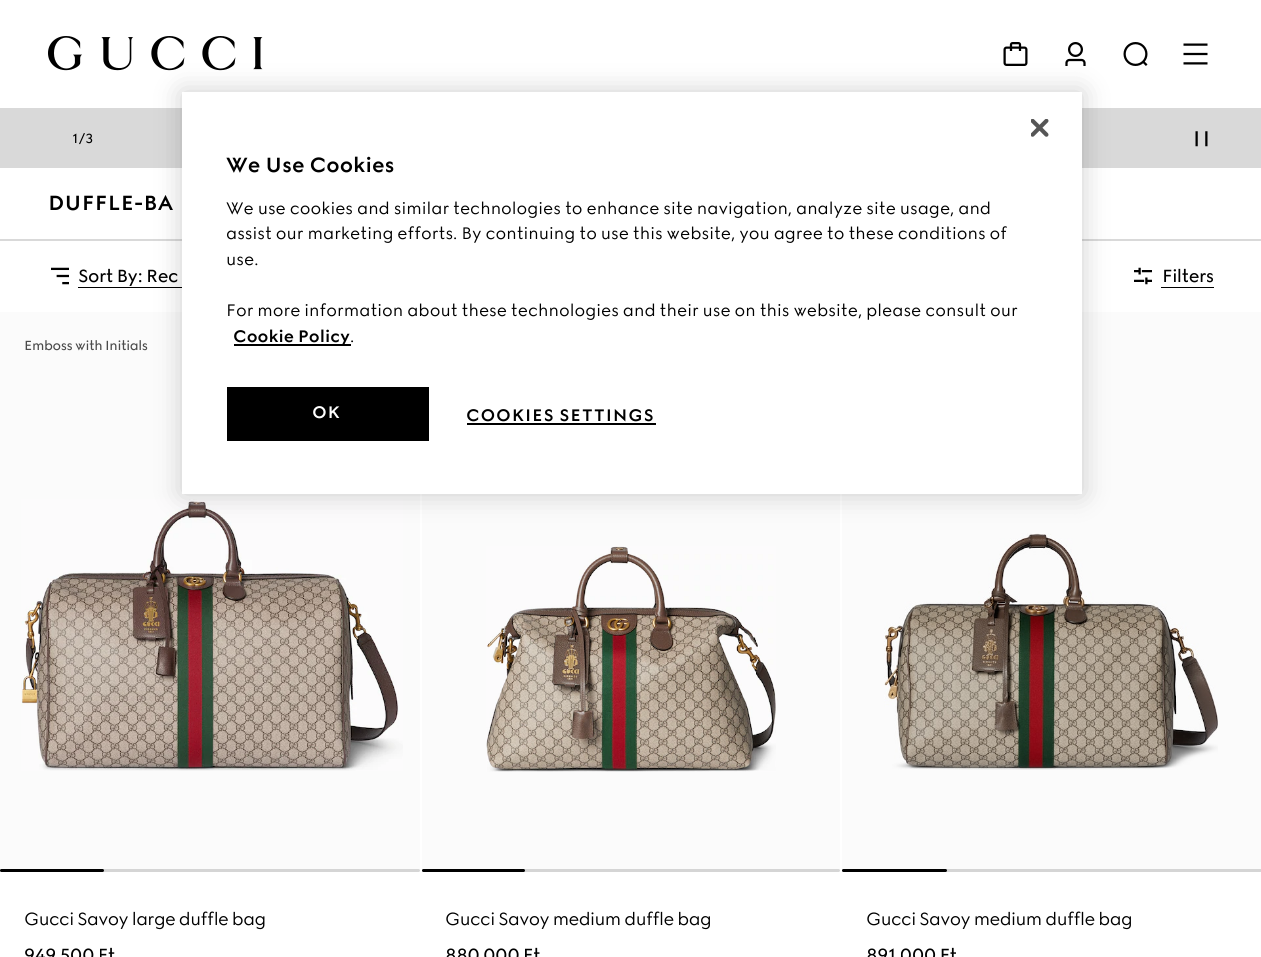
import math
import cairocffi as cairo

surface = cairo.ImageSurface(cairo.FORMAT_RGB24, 1261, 957)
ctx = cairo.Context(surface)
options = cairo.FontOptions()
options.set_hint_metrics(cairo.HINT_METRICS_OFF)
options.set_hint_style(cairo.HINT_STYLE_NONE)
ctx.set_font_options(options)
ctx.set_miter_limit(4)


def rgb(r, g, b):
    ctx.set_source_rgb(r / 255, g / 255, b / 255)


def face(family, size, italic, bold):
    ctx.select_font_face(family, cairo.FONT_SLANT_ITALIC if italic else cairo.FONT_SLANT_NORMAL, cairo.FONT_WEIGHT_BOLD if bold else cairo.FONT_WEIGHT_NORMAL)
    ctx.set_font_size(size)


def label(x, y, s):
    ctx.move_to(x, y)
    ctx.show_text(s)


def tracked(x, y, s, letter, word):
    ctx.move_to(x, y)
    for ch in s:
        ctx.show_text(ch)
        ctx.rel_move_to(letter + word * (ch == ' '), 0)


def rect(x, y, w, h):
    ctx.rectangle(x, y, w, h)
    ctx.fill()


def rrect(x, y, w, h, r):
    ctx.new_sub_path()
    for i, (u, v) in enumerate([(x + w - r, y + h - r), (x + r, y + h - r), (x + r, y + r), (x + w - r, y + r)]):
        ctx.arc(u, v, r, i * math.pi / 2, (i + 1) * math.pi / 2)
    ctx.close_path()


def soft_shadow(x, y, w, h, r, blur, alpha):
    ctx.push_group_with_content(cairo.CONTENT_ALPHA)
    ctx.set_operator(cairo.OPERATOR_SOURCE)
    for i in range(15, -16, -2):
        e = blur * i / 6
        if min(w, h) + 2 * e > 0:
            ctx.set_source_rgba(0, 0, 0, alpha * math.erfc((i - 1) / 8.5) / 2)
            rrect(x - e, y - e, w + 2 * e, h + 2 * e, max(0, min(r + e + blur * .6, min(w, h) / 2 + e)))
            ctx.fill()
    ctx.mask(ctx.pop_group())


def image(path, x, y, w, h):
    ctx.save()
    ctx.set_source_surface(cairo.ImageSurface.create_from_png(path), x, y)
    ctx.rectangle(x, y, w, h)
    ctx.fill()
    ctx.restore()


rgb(255, 255, 255)
ctx.paint()
image('image0.png', 48, 36, 215, 35)
image('image1.png', 1003, 42, 25, 24)
image('image2.png', 1065, 42, 21, 24)
image('image3.png', 1123, 42, 25, 24)
image('image4.png', 1183, 43, 25, 22)
rgb(217, 217, 217)
rect(0, 108, 1261, 60)
face('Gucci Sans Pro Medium', 13.5, 0, 0)
rgb(0, 0, 0)
tracked(72, 143, '1/3', -0.4, 0)
image('image5.png', 1195, 131, 13, 16)
rgb(217, 217, 217)
rect(0, 239, 1261, 2)
rgb(0, 0, 0)
rect(78, 287, 104, 1)
rgb(251, 251, 251)
rect(0, 312, 420, 560)
image('image9.png', 21, 499, 382, 272)
rect(422, 494, 418, 378)
rect(842, 312, 419, 560)
image('image11.png', 884, 533, 334, 237)
rgb(0, 0, 0)
soft_shadow(182, 92, 900, 402, 0, 13.5, 0.2)
rgb(255, 255, 255)
rect(182, 92, 900, 402)
image('image6.png', 1031, 119, 18, 18)
face('Gucci Sans Pro', 21, 0, 1)
rgb(0, 0, 0)
label(226, 172, 'We Use Cookies')
face('Gucci Sans Pro', 17.05, 0, 0)
label(226, 214, 'We use cookies and similar technologies to enhance site navigation, analyze site usage, and')
label(226, 239, 'assist our marketing efforts. By continuing to use this website, you agree to these conditions of')
label(226, 265, 'use.')
label(226, 316, 'For more information about these technologies and their use on this website, please consult our')
rect(234, 344, 117, 2)
face('Gucci Sans Pro', 17.05, 0, 1)
label(233, 342, 'Cookie Policy')
face('Gucci Sans Pro', 17.05, 0, 0)
label(350, 342, '.')
rect(227, 387, 202, 54)
face('Gucci Sans Pro', 17.05, 0, 1)
rgb(255, 255, 255)
tracked(312, 418, 'OK', 0.8, 0)
rgb(0, 0, 0)
tracked(466, 421, 'COOKIES SETTINGS', 0.8, 0)
rect(467, 423, 189, 2)
face('Gucci Sans Pro', 21, 0, 1)
tracked(48, 210, 'DUFFLE-BA', 0.25, 0)
image('image7.png', 51, 267, 18, 18)
face('Gucci Sans Pro Medium', 18, 0, 0)
tracked(78, 282, 'Sort By: Rec', -0.55, 0)
image('image8.png', 1134, 267, 18, 18)
tracked(1162, 282, 'Filters', -0.55, 0)
rect(1161, 287, 53, 1)
rgb(213, 213, 213)
rrect(0, 869, 420, 3, 1.5)
ctx.fill()
rgb(0, 0, 0)
rrect(0, 869, 104, 3, 1.5)
ctx.fill()
face('Gucci Sans Pro Medium', 13.5, 0, 0)
rgb(75, 75, 75)
tracked(24, 350, 'Emboss with Initials', -0.4, 0)
face('Gucci Sans Pro', 18, 0, 0)
rgb(0, 0, 0)
tracked(24, 925, 'Gucci Savoy large duffle bag', -0.55, 0)
face('Gucci Sans Pro Medium', 18, 0, 0)
tracked(24, 961, '949 500 Ft', -0.55, 0)
image('image10.png', 486, 546, 290, 226)
rgb(213, 213, 213)
rrect(422, 869, 418, 3, 1.5)
ctx.fill()
rgb(0, 0, 0)
rrect(422, 869, 103, 3, 1.5)
ctx.fill()
face('Gucci Sans Pro', 18, 0, 0)
tracked(445, 925, 'Gucci Savoy medium duffle bag', -0.55, 0)
face('Gucci Sans Pro Medium', 18, 0, 0)
tracked(445, 961, '880 000 Ft', -0.55, 0)
rgb(213, 213, 213)
rrect(842, 869, 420, 3, 1.5)
ctx.fill()
rgb(0, 0, 0)
rrect(842, 869, 105, 3, 1.5)
ctx.fill()
face('Gucci Sans Pro', 18, 0, 0)
tracked(866, 925, 'Gucci Savoy medium duffle bag', -0.55, 0)
face('Gucci Sans Pro Medium', 18, 0, 0)
tracked(866, 961, '891 000 Ft', -0.55, 0)
surface.write_to_png('render.png')
